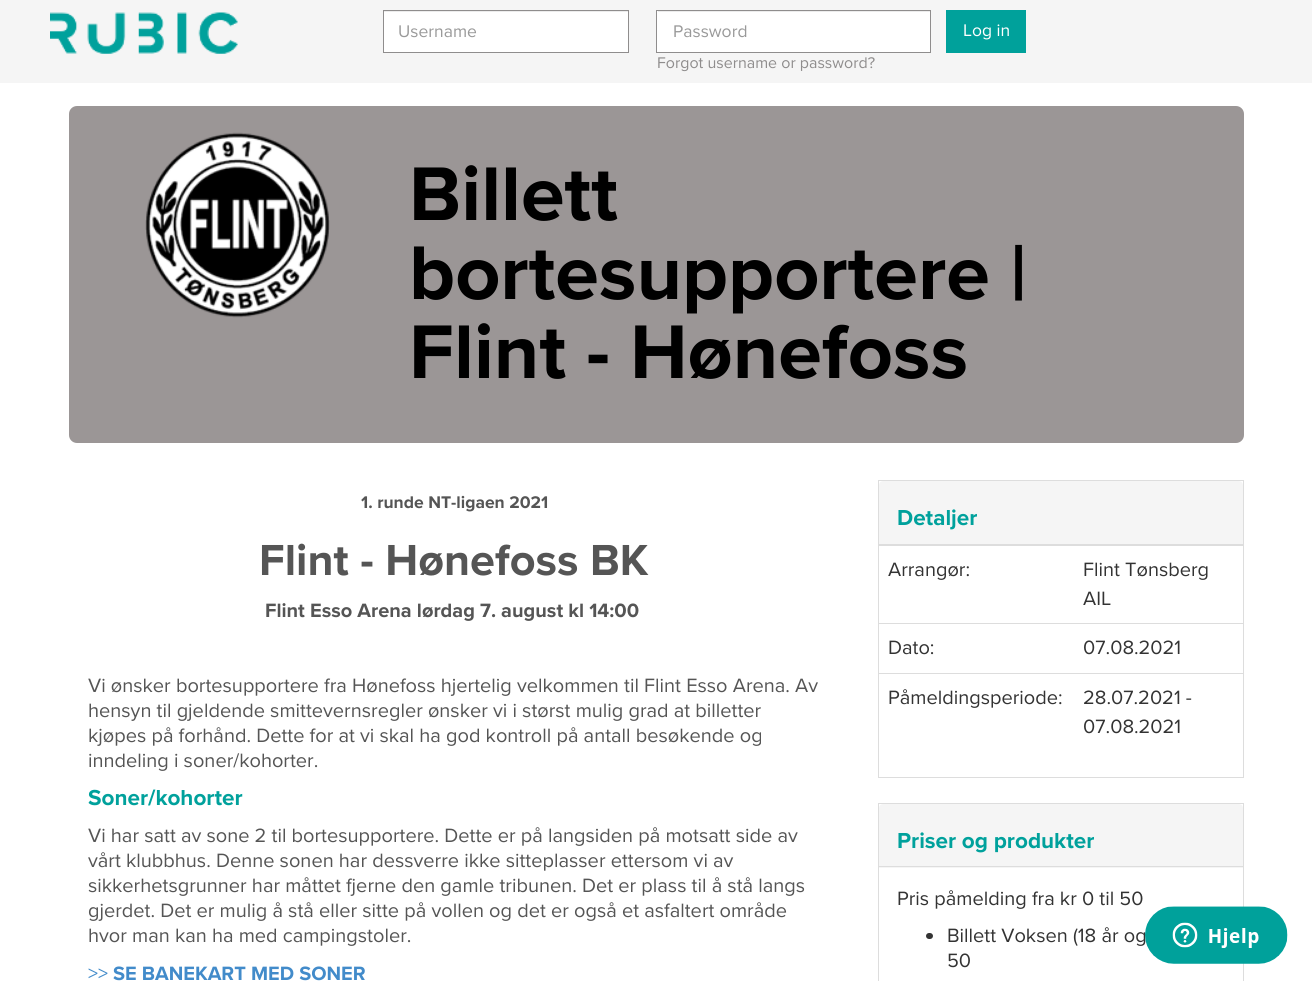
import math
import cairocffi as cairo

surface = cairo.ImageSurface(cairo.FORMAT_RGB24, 1312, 981)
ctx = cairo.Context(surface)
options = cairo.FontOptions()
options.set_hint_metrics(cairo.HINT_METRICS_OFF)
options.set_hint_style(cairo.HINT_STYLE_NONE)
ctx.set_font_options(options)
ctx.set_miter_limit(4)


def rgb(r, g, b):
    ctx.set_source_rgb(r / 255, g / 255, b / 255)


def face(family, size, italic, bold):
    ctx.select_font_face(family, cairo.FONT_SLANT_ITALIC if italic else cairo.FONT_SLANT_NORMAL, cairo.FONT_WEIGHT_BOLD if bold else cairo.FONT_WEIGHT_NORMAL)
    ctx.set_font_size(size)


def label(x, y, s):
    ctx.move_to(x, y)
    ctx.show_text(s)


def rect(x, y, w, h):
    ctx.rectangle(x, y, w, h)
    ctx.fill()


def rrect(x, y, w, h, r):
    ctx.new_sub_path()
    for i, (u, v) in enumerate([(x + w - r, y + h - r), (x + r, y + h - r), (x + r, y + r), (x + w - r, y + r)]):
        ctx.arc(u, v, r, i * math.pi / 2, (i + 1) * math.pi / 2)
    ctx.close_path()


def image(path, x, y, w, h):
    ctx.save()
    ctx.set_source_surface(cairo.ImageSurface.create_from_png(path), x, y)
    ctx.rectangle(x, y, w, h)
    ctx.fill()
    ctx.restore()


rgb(255, 255, 255)
ctx.paint()
rgb(245, 245, 245)
rect(0, 0, 1312, 83)
image('image0.png', 50, 12, 188, 42)
rgb(255, 255, 255)
rect(384, 12, 244, 40)
rgb(236, 236, 236)
rect(384, 11, 244, 1)
ctx.rectangle(383.5, 10.5, 245, 42)
rgb(143, 141, 141)
ctx.set_line_width(1)
ctx.stroke()
face('Proxima Nova', 17.5, 0, 0)
rgb(153, 153, 153)
label(398, 37, 'Username')
rgb(255, 255, 255)
rect(657, 11, 273, 41)
rgb(236, 236, 236)
rect(658, 11, 272, 1)
ctx.rectangle(656.5, 10.5, 274, 42)
rgb(143, 141, 141)
ctx.stroke()
rgb(153, 153, 153)
label(673, 37, 'Password')
face('Proxima Nova', 16, 0, 0)
rgb(143, 141, 141)
label(657, 68, 'Forgot username or password?')
rgb(0, 161, 155)
rect(946, 10, 80, 43)
face('Proxima Nova', 17.5, 0, 0)
rgb(255, 255, 255)
label(963, 36, 'Log in')
rgb(155, 150, 150)
rrect(69, 106, 1175, 337, 8)
ctx.fill()
image('image1.png', 145, 132, 185, 186)
face('Proxima Nova', 78.75, 0, 1)
rgb(0, 0, 0)
label(409, 220, 'Billett')
label(409, 299, 'bortesupportere |')
label(409, 378, 'Flint - Hønefoss')
face('Proxima Nova', 17.5, 0, 1)
rgb(85, 85, 85)
label(361, 508, '1. runde NT-ligaen 2021')
face('Proxima Nova', 45, 0, 1)
label(259, 575, 'Flint - Hønefoss BK')
face('Proxima Nova', 20, 0, 1)
label(265, 617, 'Flint Esso Arena lørdag 7. august kl 14:00')
face('Proxima Nova', 20, 0, 0)
label(88, 692, 'Vi ønsker bortesupportere fra Hønefoss hjertelig velkommen til Flint Esso Arena. Av')
label(88, 717, 'hensyn til gjeldende smittevernsregler ønsker vi i størst mulig grad at billetter')
label(88, 742, 'kjøpes på forhånd. Dette for at vi skal ha god kontroll på antall besøkende og')
label(88, 767, 'inndeling i soner/kohorter.')
face('Proxima Nova', 22.5, 0, 1)
rgb(0, 161, 156)
label(88, 805, 'Soner/kohorter')
face('Proxima Nova', 20, 0, 0)
rgb(85, 85, 85)
label(88, 842, 'Vi har satt av sone 2 til bortesupportere. Dette er på langsiden på motsatt side av')
label(88, 867, 'vårt klubbhus. Denne sonen har dessverre ikke sitteplasser ettersom vi av')
label(88, 892, 'sikkerhetsgrunner har måttet fjerne den gamle tribunen. Det er plass til å stå langs')
label(88, 917, 'gjerdet. Det er mulig å stå eller sitte på vollen og det er også et asfaltert område')
label(88, 942, 'hvor man kan ha med campingstoler.')
rgb(66, 139, 202)
label(88, 980, '>>')
face('Proxima Nova', 20, 0, 1)
label(113, 980, 'SE BANEKART MED SONER')
ctx.rectangle(878.5, 480.5, 365, 297)
rgb(221, 221, 221)
ctx.stroke()
rgb(245, 245, 245)
ctx.new_path()
ctx.move_to(883, 481)
ctx.line_to(1239, 481)
ctx.curve_to(1241, 481, 1243, 483, 1243, 485)
ctx.line_to(1243, 545)
ctx.line_to(879, 545)
ctx.line_to(879, 485)
ctx.curve_to(879, 483, 881, 481, 883, 481)
ctx.close_path()
ctx.fill()
rgb(221, 221, 221)
rect(879, 544, 364, 1)
face('Proxima Nova', 22.5, 0, 1)
rgb(0, 161, 156)
label(897, 525, 'Detaljer')
face('Proxima Nova', 20, 0, 0)
rgb(51, 51, 51)
label(888, 576, 'Arrangør:')
rgb(221, 221, 221)
rect(878, 545, 365, 1)
rgb(51, 51, 51)
label(1083, 576, 'Flint Tønsberg')
label(1083, 605, 'AIL')
label(888, 654, 'Dato:')
rgb(221, 221, 221)
rect(878, 623, 365, 1)
rgb(51, 51, 51)
label(1083, 654, '07.08.2021')
label(888, 704, 'Påmeldingsperiode:')
rgb(221, 221, 221)
rect(878, 673, 365, 1)
rgb(51, 51, 51)
label(1083, 704, '28.07.2021 -')
label(1083, 733, '07.08.2021')
ctx.rectangle(878.5, 803.5, 365, 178)
rgb(221, 221, 221)
ctx.stroke()
rgb(245, 245, 245)
ctx.new_path()
ctx.move_to(883, 804)
ctx.line_to(1239, 804)
ctx.curve_to(1241, 804, 1243, 806, 1243, 808)
ctx.line_to(1243, 868)
ctx.line_to(879, 868)
ctx.line_to(879, 808)
ctx.curve_to(879, 806, 881, 804, 883, 804)
ctx.close_path()
ctx.fill()
rgb(221, 221, 221)
rect(879, 866, 364, 1)
face('Proxima Nova', 22.5, 0, 1)
rgb(0, 161, 156)
label(897, 848, 'Priser og produkter')
face('Proxima Nova', 20, 0, 0)
rgb(51, 51, 51)
label(897, 905, 'Pris påmelding fra kr 0 til 50')
rrect(926, 933, 7, 6, 3)
ctx.fill()
label(947, 942, 'Billett Voksen (18 år og')
label(947, 967, '50')
image('image2.png', 1145, 906, 143, 58)
surface.write_to_png('render.png')
